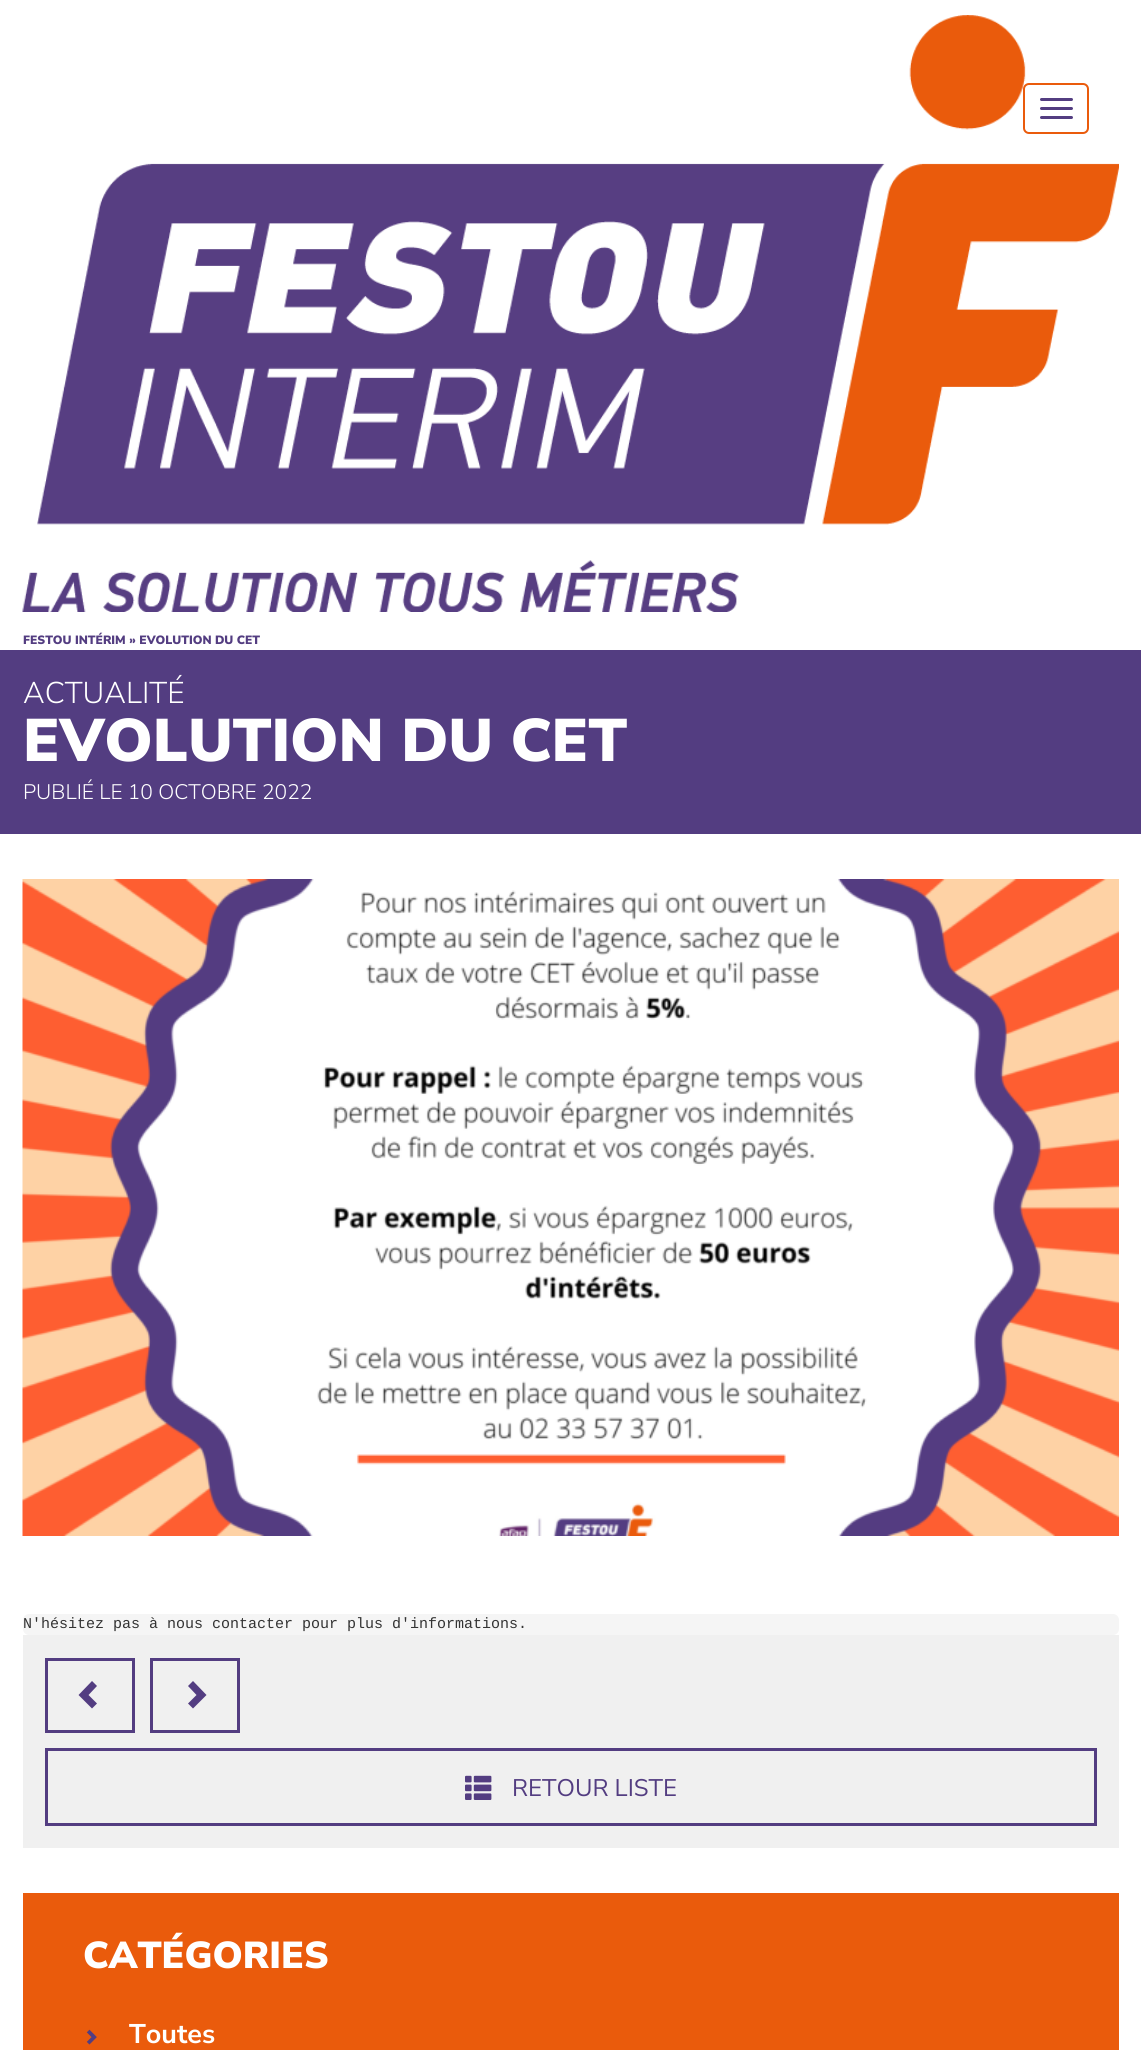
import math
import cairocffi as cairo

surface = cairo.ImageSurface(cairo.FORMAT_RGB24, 1141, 2050)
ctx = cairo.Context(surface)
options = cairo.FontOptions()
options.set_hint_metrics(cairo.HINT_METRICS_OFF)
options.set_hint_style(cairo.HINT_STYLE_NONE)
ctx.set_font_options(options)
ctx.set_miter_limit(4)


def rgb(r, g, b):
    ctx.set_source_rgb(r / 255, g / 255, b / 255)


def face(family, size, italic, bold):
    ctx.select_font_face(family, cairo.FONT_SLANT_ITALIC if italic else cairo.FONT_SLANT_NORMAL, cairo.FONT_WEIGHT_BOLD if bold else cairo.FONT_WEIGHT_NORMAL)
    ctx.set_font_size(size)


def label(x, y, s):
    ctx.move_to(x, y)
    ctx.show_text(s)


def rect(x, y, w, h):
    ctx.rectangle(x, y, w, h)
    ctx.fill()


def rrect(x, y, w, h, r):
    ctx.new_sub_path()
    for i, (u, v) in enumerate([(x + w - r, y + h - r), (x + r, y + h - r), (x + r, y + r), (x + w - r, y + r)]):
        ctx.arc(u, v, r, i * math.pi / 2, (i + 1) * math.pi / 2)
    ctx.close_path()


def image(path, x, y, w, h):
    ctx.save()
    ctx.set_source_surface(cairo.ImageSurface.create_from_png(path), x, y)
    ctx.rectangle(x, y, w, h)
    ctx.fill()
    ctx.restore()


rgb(255, 255, 255)
ctx.paint()
image('image0.png', 22, 15, 1097, 597)
rgb(255, 255, 255)
rrect(1024, 84, 64, 49, 5)
ctx.fill_preserve()
rgb(234, 91, 12)
ctx.stroke()
rgb(83, 61, 129)
rrect(1040, 98, 33, 3, 1.5)
ctx.fill()
rrect(1040, 107, 33, 3, 1.5)
ctx.fill()
rrect(1040, 116, 33, 3, 1.5)
ctx.fill()
face('Nunito Sans Black', 12, 0, 0)
label(23, 644, 'FESTOU INTÉRIM » EVOLUTION DU CET')
rect(0, 650, 1141, 184)
face('Nunito Sans Light', 30, 0, 0)
rgb(255, 255, 255)
label(23, 703, 'ACTUALITÉ')
face('Nunito Sans Black', 60, 0, 0)
label(23, 761, 'EVOLUTION DU CET')
face('Nunito Sans Light', 21, 0, 0)
label(23, 799, 'PUBLIÉ LE 10 OCTOBRE 2022')
image('image1.png', 22, 879, 1097, 657)
rgb(245, 245, 245)
rrect(23, 1614, 1096, 21, 6)
ctx.fill()
face('Liberation Mono', 15, 0, 0)
rgb(51, 51, 51)
label(23, 1628, 'N\'hésitez pas à nous contacter pour plus d\'informations.')
rgb(240, 240, 240)
rect(23, 1635, 1096, 213)
ctx.rectangle(46.5, 1659.5, 87, 72)
rgb(83, 61, 129)
ctx.set_line_width(3)
ctx.stroke()
ctx.new_path()
ctx.move_to(97, 1686)
ctx.line_to(88.5, 1695)
ctx.line_to(97, 1703.5)
ctx.line_to(92, 1708.5)
ctx.line_to(78.5, 1695)
ctx.line_to(92, 1681)
ctx.close_path()
ctx.fill()
ctx.rectangle(151.5, 1659.5, 87, 72)
ctx.stroke()
ctx.new_path()
ctx.move_to(206.5, 1695)
ctx.line_to(193, 1708.5)
ctx.line_to(188, 1703.5)
ctx.line_to(196.5, 1695)
ctx.line_to(188, 1686)
ctx.line_to(193, 1681)
ctx.close_path()
ctx.fill()
ctx.rectangle(46.5, 1749.5, 1049, 75)
ctx.stroke()
image('image2.png', 465, 1775, 27, 25)
face('Nunito Sans', 24, 0, 0)
label(512, 1796, 'RETOUR LISTE')
rgb(234, 91, 12)
rect(23, 1893, 1096, 157)
face('Nunito Sans Black', 37.5, 0, 0)
rgb(255, 255, 255)
label(83, 1968, 'CATÉGORIES')
image('image3.png', 86, 2029, 11, 16)
face('Nunito Sans', 27, 0, 1)
label(129, 2043, 'Toutes')
surface.write_to_png('render.png')
